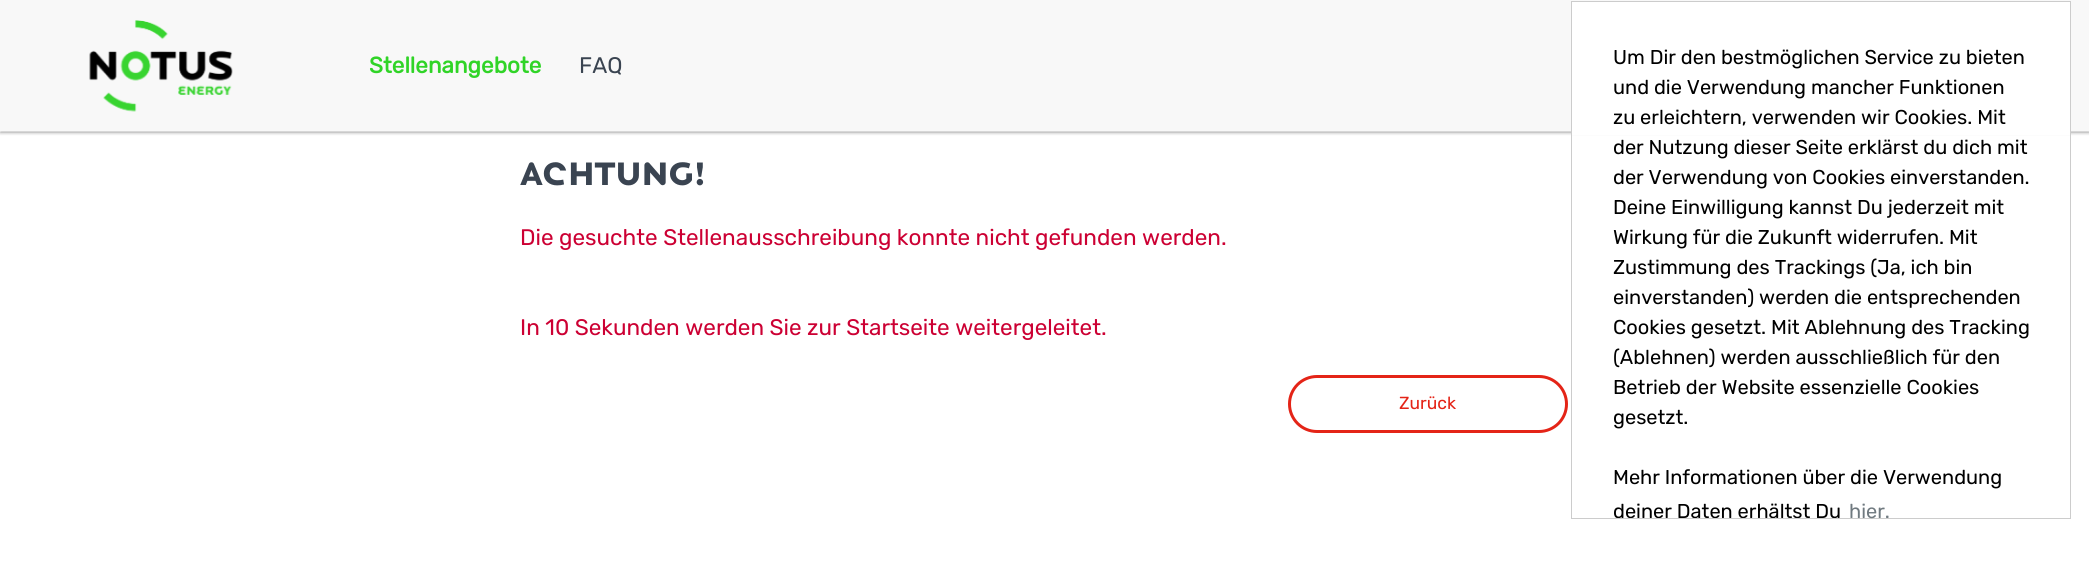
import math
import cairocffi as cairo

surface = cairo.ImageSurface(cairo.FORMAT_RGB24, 2089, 574)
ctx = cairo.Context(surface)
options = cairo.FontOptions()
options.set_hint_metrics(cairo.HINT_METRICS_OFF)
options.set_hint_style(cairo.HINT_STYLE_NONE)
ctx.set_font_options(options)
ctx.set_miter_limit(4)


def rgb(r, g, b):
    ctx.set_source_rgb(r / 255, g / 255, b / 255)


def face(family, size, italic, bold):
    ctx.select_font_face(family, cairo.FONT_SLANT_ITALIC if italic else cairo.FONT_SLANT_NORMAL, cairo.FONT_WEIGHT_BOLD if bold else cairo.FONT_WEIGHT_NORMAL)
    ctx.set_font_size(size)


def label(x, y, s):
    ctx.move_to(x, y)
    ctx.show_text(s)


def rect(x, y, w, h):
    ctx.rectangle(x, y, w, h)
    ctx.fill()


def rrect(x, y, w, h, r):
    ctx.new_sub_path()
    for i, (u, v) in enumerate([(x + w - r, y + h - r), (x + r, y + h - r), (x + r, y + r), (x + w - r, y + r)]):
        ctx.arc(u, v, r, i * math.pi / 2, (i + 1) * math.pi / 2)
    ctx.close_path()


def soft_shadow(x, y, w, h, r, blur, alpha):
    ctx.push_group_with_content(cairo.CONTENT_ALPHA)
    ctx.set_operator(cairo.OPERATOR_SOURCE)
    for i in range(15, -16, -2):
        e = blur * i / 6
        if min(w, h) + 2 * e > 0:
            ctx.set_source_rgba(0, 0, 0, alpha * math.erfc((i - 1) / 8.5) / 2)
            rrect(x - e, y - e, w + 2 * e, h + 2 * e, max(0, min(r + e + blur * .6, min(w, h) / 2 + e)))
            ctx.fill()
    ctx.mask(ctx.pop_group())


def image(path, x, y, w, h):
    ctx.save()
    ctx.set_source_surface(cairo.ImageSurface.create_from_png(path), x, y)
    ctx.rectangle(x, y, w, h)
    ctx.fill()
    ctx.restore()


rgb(255, 255, 255)
ctx.paint()
ctx.rectangle(-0.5, -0.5, 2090, 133)
rgb(235, 235, 235)
ctx.set_line_width(1)
ctx.stroke()
rgb(0, 0, 0)
soft_shadow(0, 3, 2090, 131, 0, 1, 0.16)
rgb(248, 248, 248)
rect(0, 0, 2089, 131)
image('image0.png', 89, 20, 144, 92)
face('Rubik', 22.5, 0, 1)
rgb(48, 212, 39)
label(369, 73, 'Stellenangebote')
face('Rubik', 22.5, 0, 0)
rgb(58, 68, 81)
label(579, 73, 'FAQ')
face('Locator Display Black', 33.75, 0, 0)
label(520, 185, 'Achtung!')
face('Rubik', 22.5, 0, 0)
rgb(204, 0, 51)
label(520, 245, 'Die gesuchte Stellenausschreibung konnte nicht gefunden werden.')
label(520, 335, 'In 10 Sekunden werden Sie zur Startseite weitergeleitet.')
rrect(1289.5, 376.5, 277, 55, 27.5)
rgb(228, 36, 23)
ctx.set_line_width(3)
ctx.stroke()
face('Rubik', 17.5, 0, 0)
label(1399, 409, 'Zurück')
rgb(255, 255, 255)
rect(1572, 2, 498, 133)
ctx.rectangle(1571.5, 1.5, 499, 517)
rgb(204, 204, 204)
ctx.set_line_width(1)
ctx.stroke()
face('Rubik', 20, 0, 0)
rgb(0, 0, 0)
label(1613, 64, 'Um Dir den bestmöglichen Service zu bieten')
label(1613, 94, 'und die Verwendung mancher Funktionen')
label(1613, 124, 'zu erleichtern, verwenden wir Cookies. Mit')
label(1613, 154, 'der Nutzung dieser Seite erklärst du dich mit')
label(1613, 184, 'der Verwendung von Cookies einverstanden.')
label(1613, 214, 'Deine Einwilligung kannst Du jederzeit mit')
label(1613, 244, 'Wirkung für die Zukunft widerrufen. Mit')
label(1613, 274, 'Zustimmung des Trackings (Ja, ich bin')
label(1613, 304, 'einverstanden) werden die entsprechenden')
label(1613, 334, 'Cookies gesetzt. Mit Ablehnung des Tracking')
label(1613, 364, '(Ablehnen) werden ausschließlich für den')
label(1613, 394, 'Betrieb der Website essenzielle Cookies')
label(1613, 424, 'gesetzt.')
label(1613, 484, 'Mehr Informationen über die Verwendung')
ctx.save()
ctx.rectangle(1573, 3, 497, 515)
ctx.clip()
label(1613, 518, 'deiner Daten erhältst Du')
ctx.restore()
rgb(111, 121, 127)
label(1849, 518, 'hier.')
surface.write_to_png('render.png')
